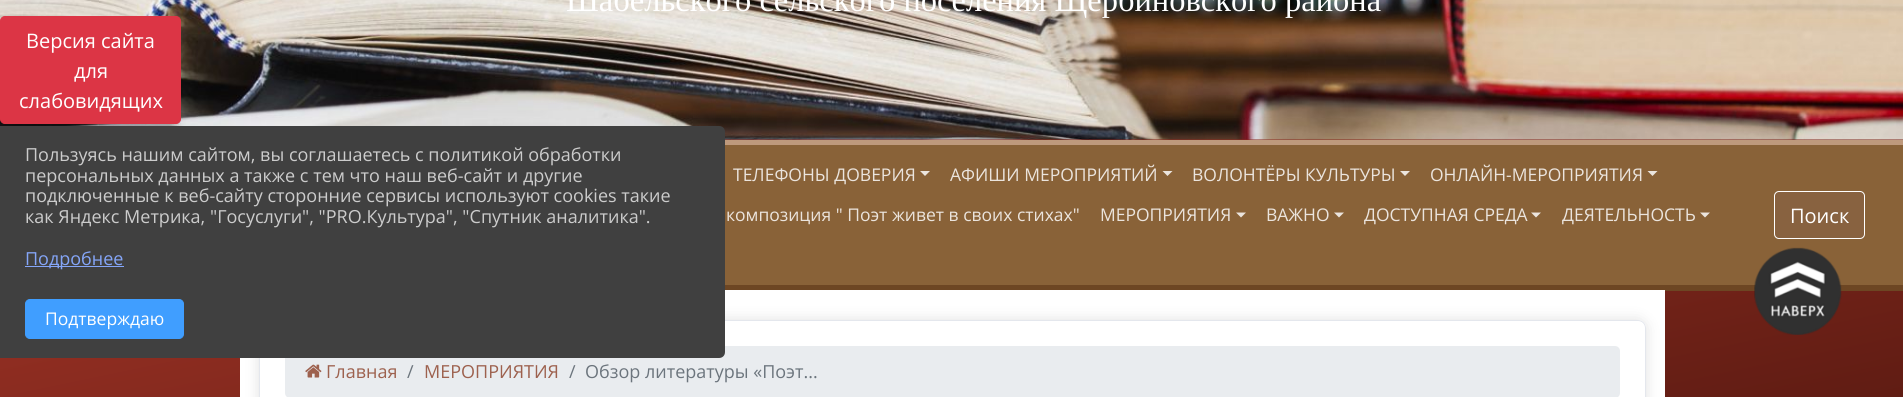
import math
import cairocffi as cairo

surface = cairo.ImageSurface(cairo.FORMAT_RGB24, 1903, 397)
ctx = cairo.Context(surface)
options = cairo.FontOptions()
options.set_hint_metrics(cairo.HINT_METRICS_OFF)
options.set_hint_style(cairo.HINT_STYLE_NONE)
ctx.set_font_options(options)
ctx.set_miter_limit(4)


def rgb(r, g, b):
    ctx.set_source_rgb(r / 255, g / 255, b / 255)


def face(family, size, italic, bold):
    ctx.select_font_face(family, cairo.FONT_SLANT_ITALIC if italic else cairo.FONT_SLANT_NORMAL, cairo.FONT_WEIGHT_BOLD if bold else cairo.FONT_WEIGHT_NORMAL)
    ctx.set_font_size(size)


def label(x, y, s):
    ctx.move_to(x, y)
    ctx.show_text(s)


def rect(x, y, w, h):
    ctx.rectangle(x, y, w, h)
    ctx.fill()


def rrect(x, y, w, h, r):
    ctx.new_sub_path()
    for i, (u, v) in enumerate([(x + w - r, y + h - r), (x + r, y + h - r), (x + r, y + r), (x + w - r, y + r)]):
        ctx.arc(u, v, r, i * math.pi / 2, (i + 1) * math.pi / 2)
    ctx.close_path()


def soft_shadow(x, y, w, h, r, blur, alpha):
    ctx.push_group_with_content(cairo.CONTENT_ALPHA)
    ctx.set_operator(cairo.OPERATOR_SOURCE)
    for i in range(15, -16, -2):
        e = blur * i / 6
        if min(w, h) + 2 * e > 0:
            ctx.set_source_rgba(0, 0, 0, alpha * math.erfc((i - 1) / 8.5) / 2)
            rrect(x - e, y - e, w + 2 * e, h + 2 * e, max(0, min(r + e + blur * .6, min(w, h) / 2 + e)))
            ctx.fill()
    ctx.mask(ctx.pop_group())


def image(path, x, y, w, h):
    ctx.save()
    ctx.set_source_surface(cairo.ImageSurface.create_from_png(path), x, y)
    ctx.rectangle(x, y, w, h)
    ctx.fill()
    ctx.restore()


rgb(255, 255, 255)
ctx.paint()
gradient = cairo.LinearGradient(1031, 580, 872, -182)
gradient.add_color_stop_rgba(0, 0.376, 0.11, 0.075, 1)
gradient.add_color_stop_rgba(1, 0.71, 0.231, 0.173, 1)
ctx.set_source(gradient)
rect(0, 139, 1903, 258)
image('image0.png', 0, 0, 1903, 140)
rgb(0, 0, 0)
soft_shadow(-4, 25, 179, 105, 4, 5, 0.35)
rgb(220, 53, 69)
rrect(0.5, 16.5, 180, 107, 4.5)
ctx.fill_preserve()
ctx.set_line_width(1)
ctx.stroke()
face('Open Sans', 20, 0, 0)
rgb(255, 255, 255)
label(26, 48, 'Версия сайта')
label(74, 78, 'для')
label(19, 108, 'слабовидящих')
face('Liberation Serif', 32.5, 0, 0)
label(566, 11, 'Шабельского сельского поселения Щербиновского района')
rgb(137, 98, 56)
rect(725, 145, 1178, 140)
rgb(190, 153, 124)
rect(725, 140, 1178, 5)
rgb(109, 70, 35)
rect(725, 285, 1178, 6)
face('Open Sans', 17.5, 0, 0)
rgb(235, 228, 221)
label(733, 181, 'ТЕЛЕФОНЫ ДОВЕРИЯ')
ctx.new_path()
ctx.move_to(920, 171)
ctx.line_to(930, 171)
ctx.line_to(925, 176)
ctx.close_path()
ctx.fill()
label(950, 181, 'АФИШИ МЕРОПРИЯТИЙ')
ctx.new_path()
ctx.move_to(1162.5, 171)
ctx.line_to(1172.5, 171)
ctx.line_to(1167.5, 176)
ctx.close_path()
ctx.fill()
label(1192, 181, 'ВОЛОНТЁРЫ КУЛЬТУРЫ')
ctx.new_path()
ctx.move_to(1400, 171)
ctx.line_to(1410, 171)
ctx.line_to(1405, 176)
ctx.close_path()
ctx.fill()
label(1430, 181, 'ОНЛАЙН-МЕРОПРИЯТИЯ')
ctx.new_path()
ctx.move_to(1647.5, 171)
ctx.line_to(1657.5, 171)
ctx.line_to(1652.5, 176)
ctx.close_path()
ctx.fill()
label(726, 221, 'композиция " Поэт живет в своих стихах"')
label(1100, 221, 'МЕРОПРИЯТИЯ')
ctx.new_path()
ctx.move_to(1236, 212.5)
ctx.line_to(1246, 212.5)
ctx.line_to(1241, 217.5)
ctx.close_path()
ctx.fill()
label(1266, 221, 'ВАЖНО')
ctx.new_path()
ctx.move_to(1334, 212.5)
ctx.line_to(1344, 212.5)
ctx.line_to(1339, 217.5)
ctx.close_path()
ctx.fill()
label(1364, 221, 'ДОСТУПНАЯ СРЕДА')
ctx.new_path()
ctx.move_to(1531, 212.5)
ctx.line_to(1541, 212.5)
ctx.line_to(1536, 217.5)
ctx.close_path()
ctx.fill()
label(1562, 221, 'ДЕЯТЕЛЬНОСТЬ')
ctx.new_path()
ctx.move_to(1700, 212.5)
ctx.line_to(1710, 212.5)
ctx.line_to(1705, 217.5)
ctx.close_path()
ctx.fill()
rgb(136, 98, 64)
rrect(1774.5, 191.5, 90, 47, 4.5)
ctx.fill_preserve()
rgb(255, 255, 255)
ctx.stroke()
face('Open Sans', 20, 0, 0)
label(1790, 223, 'Поиск')
image('image1.png', 1754, 247, 88, 88)
rect(240, 290, 1425, 107)
ctx.save()
ctx.set_fill_rule(cairo.FILL_RULE_EVEN_ODD)
ctx.new_path()
ctx.move_to(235, 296)
ctx.line_to(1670, 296)
ctx.line_to(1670, 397)
ctx.line_to(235, 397)
ctx.close_path()
ctx.move_to(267, 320)
ctx.line_to(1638, 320)
ctx.curve_to(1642.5, 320, 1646, 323.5, 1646, 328)
ctx.line_to(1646, 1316)
ctx.curve_to(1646, 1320.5, 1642.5, 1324, 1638, 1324)
ctx.line_to(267, 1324)
ctx.curve_to(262.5, 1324, 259, 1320.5, 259, 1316)
ctx.line_to(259, 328)
ctx.curve_to(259, 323.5, 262.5, 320, 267, 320)
ctx.close_path()
ctx.clip()
rgb(0, 0, 0)
soft_shadow(259, 320, 1387, 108, 8, 7.5, 0.12)
ctx.restore()
rrect(259.5, 320.5, 1386, 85, 7.5)
rgb(228, 231, 237)
ctx.stroke()
rgb(233, 236, 239)
rrect(285, 346, 1335, 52, 5)
ctx.fill()
image('image2.png', 305, 364, 17, 14)
face('Open Sans', 18, 0, 0)
rgb(157, 97, 78)
label(326, 378, 'Главная')
rgb(108, 117, 125)
label(407, 378, '/')
rgb(157, 97, 78)
label(424, 378, 'МЕРОПРИЯТИЯ')
rgb(108, 117, 125)
label(569, 378, '/')
label(585, 378, 'Обзор литературы «Поэт...')
rgb(64, 64, 64)
ctx.new_path()
ctx.move_to(0, 126)
ctx.line_to(719, 126)
ctx.curve_to(722.5, 126, 725, 128.5, 725, 132)
ctx.line_to(725, 352)
ctx.curve_to(725, 355.5, 722.5, 358, 719, 358)
ctx.line_to(0, 358)
ctx.close_path()
ctx.fill()
rgb(204, 204, 204)
label(25, 161, 'Пользуясь нашим сайтом, вы соглашаетесь с политикой обработки')
label(25, 182, 'персональных данных а также с тем что наш веб-сайт и другие')
label(25, 202, 'подключенные к веб-сайту сторонние сервисы используют cookies такие')
label(25, 223, 'как Яндекс Метрика, "Госуслуги", "PRO.Культура", "Спутник аналитика".')
rgb(133, 166, 249)
rect(25, 266, 99, 1)
label(25, 265, 'Подробнее')
rgb(64, 158, 255)
rrect(25.5, 299.5, 158, 39, 4.5)
ctx.fill_preserve()
ctx.stroke()
face('Open Sans', 17.5, 0, 0)
rgb(255, 255, 255)
label(45, 325, 'Подтверждаю')
surface.write_to_png('render.png')
